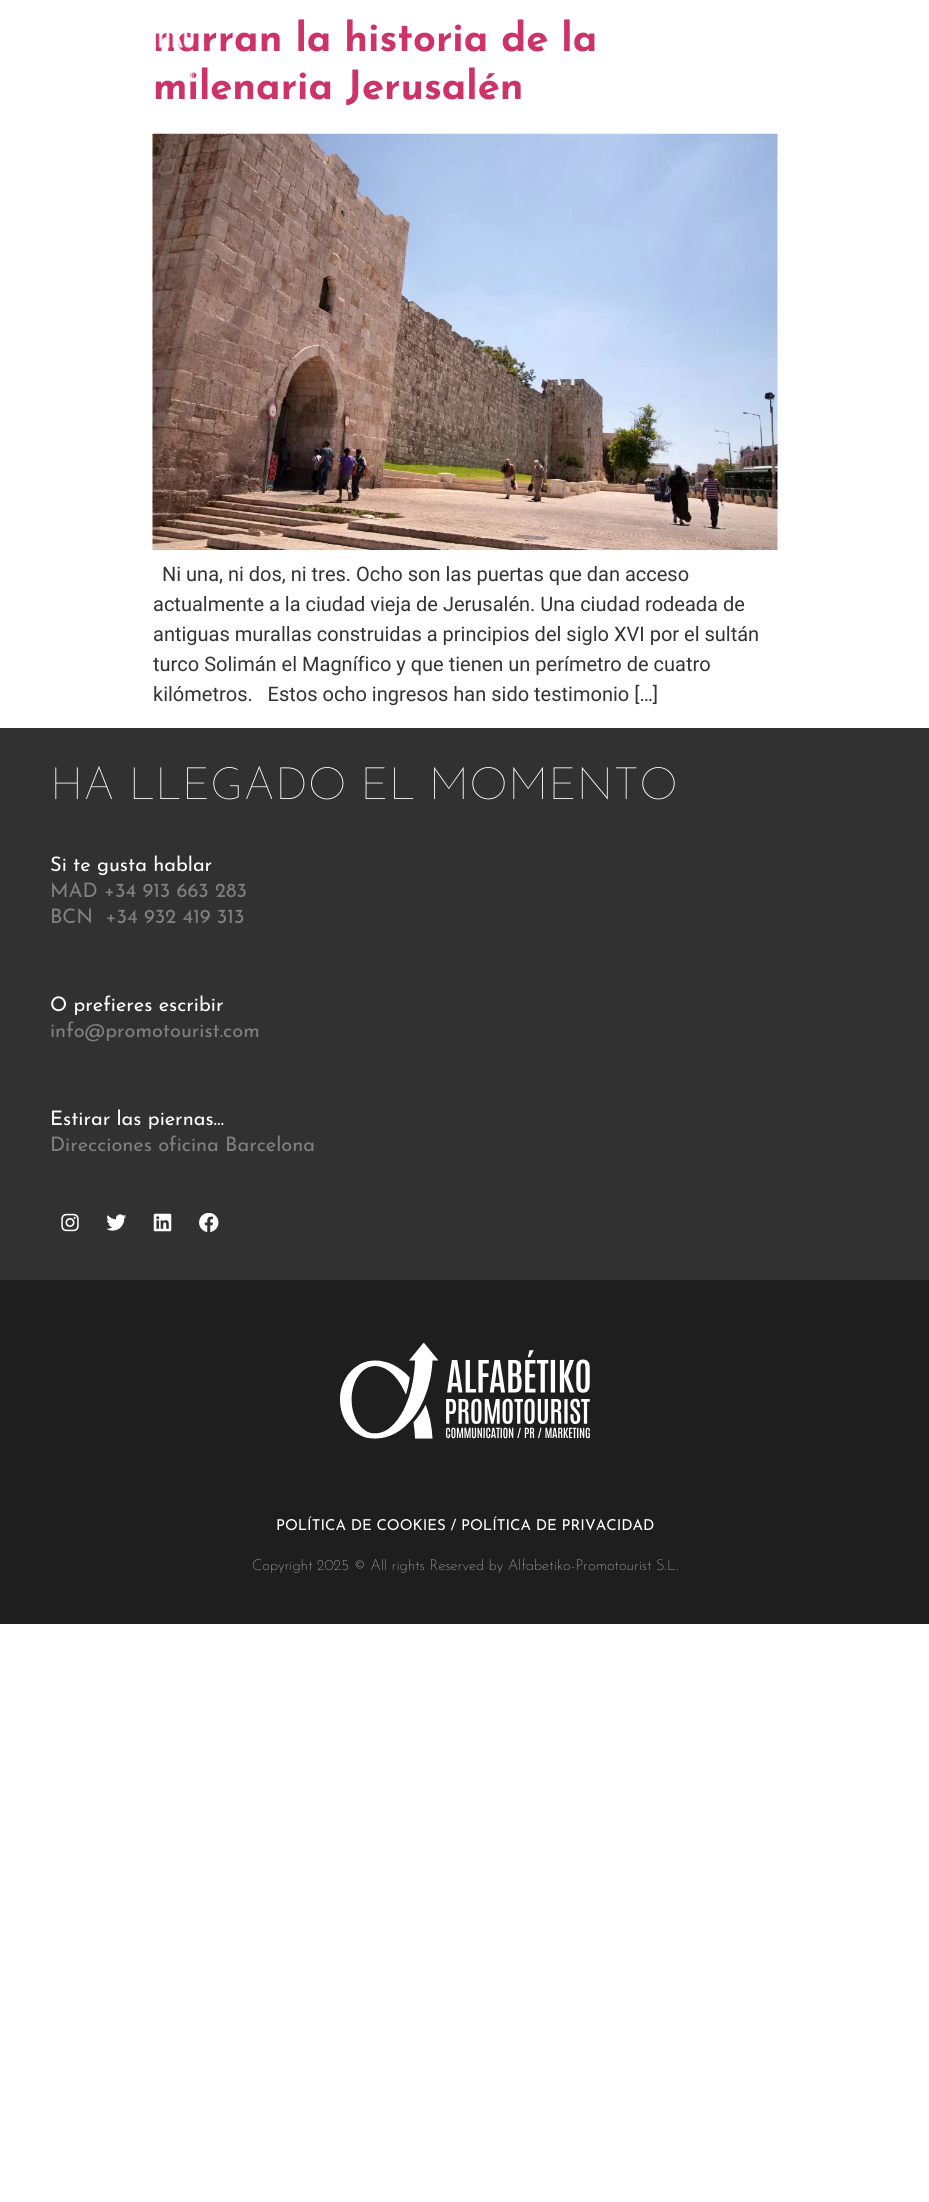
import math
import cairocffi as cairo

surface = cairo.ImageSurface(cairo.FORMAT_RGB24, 929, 2202)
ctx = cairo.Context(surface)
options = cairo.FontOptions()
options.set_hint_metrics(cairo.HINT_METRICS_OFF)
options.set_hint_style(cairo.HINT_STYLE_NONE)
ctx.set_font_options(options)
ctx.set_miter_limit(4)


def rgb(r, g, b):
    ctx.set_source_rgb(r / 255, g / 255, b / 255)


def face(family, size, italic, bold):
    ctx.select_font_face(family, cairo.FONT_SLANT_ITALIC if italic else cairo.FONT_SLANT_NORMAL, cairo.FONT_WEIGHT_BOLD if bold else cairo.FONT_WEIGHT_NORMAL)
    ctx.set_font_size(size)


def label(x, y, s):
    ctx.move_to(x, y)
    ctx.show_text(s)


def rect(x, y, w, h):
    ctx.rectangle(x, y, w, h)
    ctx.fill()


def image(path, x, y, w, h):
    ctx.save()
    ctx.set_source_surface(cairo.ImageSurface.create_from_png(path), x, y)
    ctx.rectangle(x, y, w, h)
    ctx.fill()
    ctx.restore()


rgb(255, 255, 255)
ctx.paint()
face('Josefin Sans', 40, 0, 1)
rgb(204, 51, 102)
label(153, 51, 'narran la historia de la')
label(153, 99, 'milenaria Jerusalén')
image('image0.png', 152, 133, 626, 417)
face('Roboto', 20, 0, 0)
rgb(51, 51, 51)
label(162, 581, 'Ni una, ni dos, ni tres. Ocho son las puertas que dan acceso')
label(153, 611, 'actualmente a la ciudad vieja de Jerusalén. Una ciudad rodeada de')
label(153, 641, 'antiguas murallas construidas a principios del siglo XVI por el sultán')
label(153, 671, 'turco Solimán el Magnífico y que tienen un perímetro de cuatro')
label(153, 701, 'kilómetros.   Estos ocho ingresos han sido testimonio […]')
image('image1.png', 155, 32, 39, 47)
rgb(49, 49, 49)
rect(0, 728, 929, 552)
face('Josefin Sans Thin', 45, 0, 0)
rgb(255, 255, 255)
label(50, 799, 'HA LLEGADO EL MOMENTO')
face('Josefin Sans', 20, 0, 0)
label(50, 871, 'Si te gusta hablar')
rgb(128, 128, 128)
label(50, 897, 'MAD +34 913 663 283')
label(50, 923, 'BCN  +34 932 419 313')
rgb(255, 255, 255)
label(50, 1011, 'O prefieres escribir')
rgb(128, 128, 128)
label(50, 1037, 'info@promotourist.com')
rgb(255, 255, 255)
label(50, 1125, 'Estirar las piernas…')
rgb(128, 128, 128)
label(50, 1151, 'Direcciones oficina Barcelona')
image('image2.png', 61, 1213, 18, 19)
image('image3.png', 106, 1214, 20, 17)
image('image4.png', 153, 1213, 19, 19)
image('image5.png', 199, 1213, 20, 19)
rgb(30, 30, 30)
rect(0, 1280, 929, 344)
image('image6.png', 340, 1343, 250, 96)
face('Josefin Sans', 15, 0, 0)
rgb(255, 255, 255)
label(276, 1530, 'POLÍTICA DE COOKIES / POLÍTICA DE PRIVACIDAD')
face('Josefin Sans Thin', 15, 0, 0)
label(252, 1570, 'Copyright 2025 © All rights Reserved by Alfabetiko-Promotourist S.L.')
surface.write_to_png('render.png')
